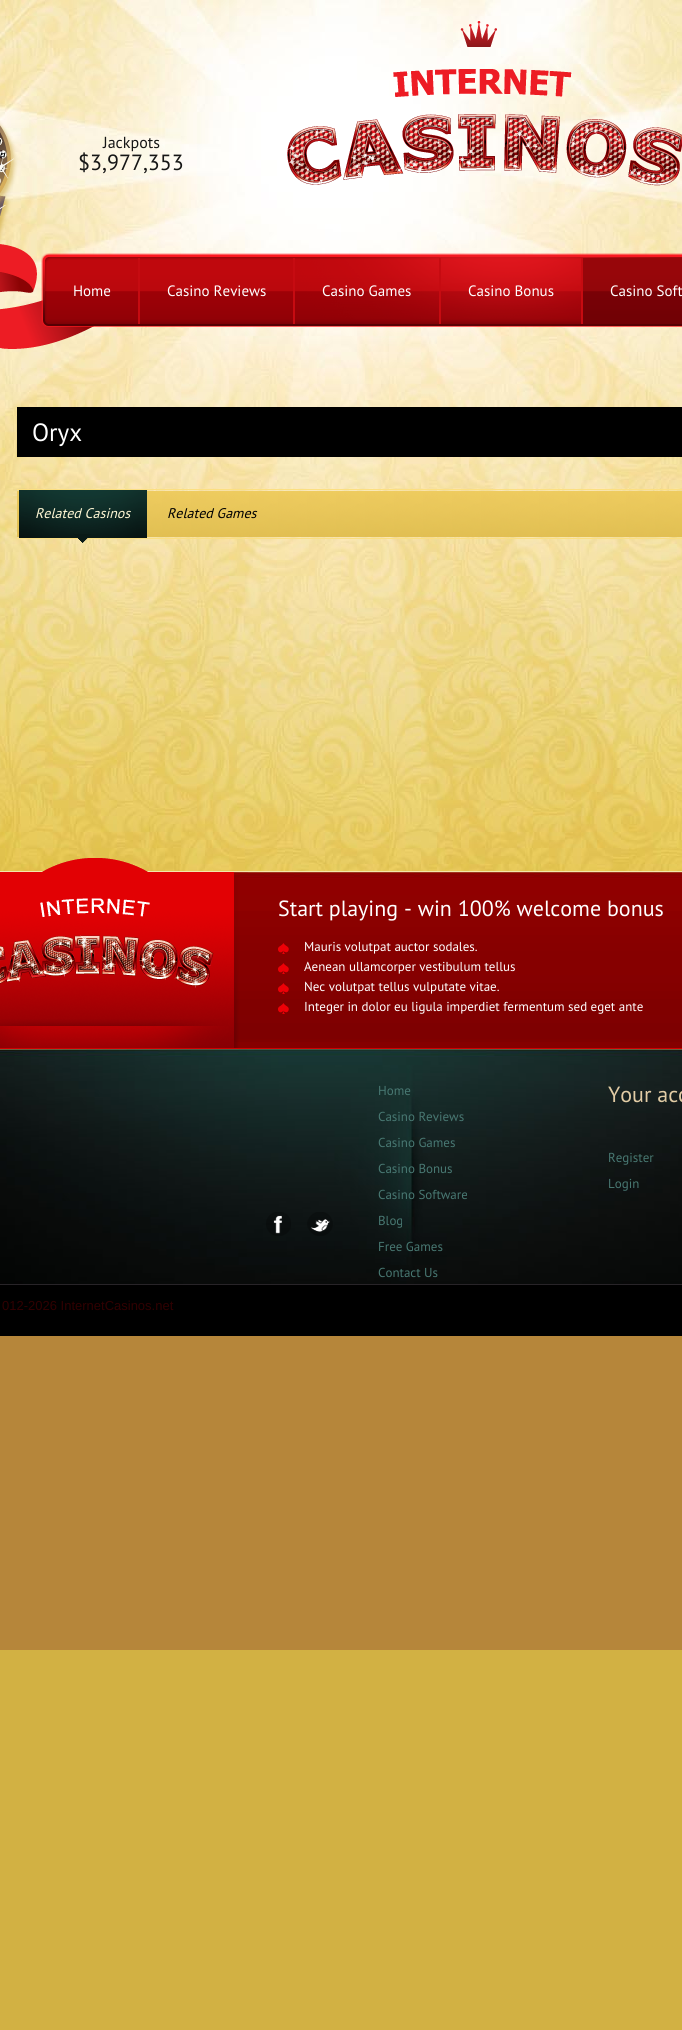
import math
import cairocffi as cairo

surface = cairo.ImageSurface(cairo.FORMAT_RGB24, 682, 2030)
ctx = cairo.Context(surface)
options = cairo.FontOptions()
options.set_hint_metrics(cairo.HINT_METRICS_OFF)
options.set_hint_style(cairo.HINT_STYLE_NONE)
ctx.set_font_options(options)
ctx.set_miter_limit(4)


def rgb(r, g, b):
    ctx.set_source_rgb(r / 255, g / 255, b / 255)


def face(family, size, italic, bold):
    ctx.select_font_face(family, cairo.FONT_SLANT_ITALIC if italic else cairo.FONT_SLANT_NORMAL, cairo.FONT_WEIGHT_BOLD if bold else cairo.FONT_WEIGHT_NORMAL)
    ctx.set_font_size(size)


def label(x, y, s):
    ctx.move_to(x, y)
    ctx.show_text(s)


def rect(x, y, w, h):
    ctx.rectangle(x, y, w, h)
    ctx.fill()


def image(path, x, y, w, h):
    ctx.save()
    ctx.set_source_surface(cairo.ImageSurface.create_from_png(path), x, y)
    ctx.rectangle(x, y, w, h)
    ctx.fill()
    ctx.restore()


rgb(210, 177, 67)
ctx.paint()
image('image0.png', 0, 1336, 682, 314)
image('image1.png', 0, 0, 682, 871)
image('image2.png', 287, 21, 395, 165)
face('PT Sans', 22, 0, 0)
rgb(22, 22, 22)
label(78, 170, '$3,977,353')
image('image3.png', 0, 121, 94, 228)
face('PT Sans', 16, 0, 0)
label(103, 148, 'Jackpots')
image('image4.png', 41, 253, 641, 74)
rgb(198, 11, 17)
rect(138, 258, 2, 66)
face('PT Sans', 15, 0, 0)
rgb(255, 255, 255)
label(73, 296, 'Home')
rgb(198, 11, 17)
rect(293, 258, 2, 66)
rgb(255, 255, 255)
label(167, 296, 'Casino Reviews')
rgb(198, 11, 17)
rect(439, 258, 2, 66)
rgb(255, 255, 255)
label(322, 296, 'Casino Games')
rgb(198, 11, 17)
rect(581, 258, 2, 66)
rgb(255, 255, 255)
label(468, 296, 'Casino Bonus')
image('image5.png', 583, 258, 99, 66)
label(610, 296, 'Casino Soft')
rgb(0, 0, 0)
rect(17, 407, 665, 50)
face('PT Sans', 25, 0, 0)
rgb(255, 255, 255)
label(32, 441, 'Oryx')
image('image6.png', 17, 489, 665, 50)
image('image7.png', 19, 490, 128, 53)
face('PT Sans', 14, 1, 0)
rgb(255, 247, 212)
label(35, 518, 'Related Casinos')
rgb(0, 0, 0)
label(167, 518, 'Related Games')
rgb(133, 0, 0)
rect(234, 1042, 448, 6)
image('image8.png', 0, 871, 682, 171)
rgb(209, 0, 0)
rect(0, 1048, 682, 1)
image('image9.png', 0, 858, 248, 190)
image('image10.png', 0, 898, 214, 90)
face('PT Sans', 22, 0, 0)
rgb(255, 255, 255)
label(278, 916, 'Start playing - win 100% welcome bonus')
image('image11.png', 278, 943, 11, 11)
face('PT Sans', 13, 0, 0)
label(304, 951, 'Mauris volutpat auctor sodales.')
image('image12.png', 278, 963, 11, 11)
label(304, 971, 'Aenean ullamcorper vestibulum tellus')
image('image13.png', 278, 983, 11, 11)
label(304, 991, 'Nec volutpat tellus vulputate vitae.')
image('image14.png', 278, 1003, 11, 11)
label(304, 1011, 'Integer in dolor eu ligula imperdiet fermentum sed eget ante')
image('image15.png', 0, 1049, 682, 235)
rgb(72, 120, 114)
label(378, 1095, 'Home')
label(378, 1121, 'Casino Reviews')
label(378, 1147, 'Casino Games')
label(378, 1173, 'Casino Bonus')
label(378, 1199, 'Casino Software')
label(378, 1225, 'Blog')
label(378, 1251, 'Free Games')
label(378, 1277, 'Contact Us')
face('PT Sans', 22, 0, 0)
rgb(226, 204, 165)
label(608, 1102, 'Your acc')
face('PT Sans', 13, 0, 0)
rgb(72, 120, 114)
label(608, 1162, 'Register')
label(608, 1188, 'Login')
image('image16.png', 266, 1212, 25, 24)
image('image17.png', 307, 1212, 26, 24)
rgb(0, 0, 0)
rect(0, 1285, 682, 51)
rgb(40, 36, 40)
rect(0, 1284, 682, 1)
face('Liberation Sans', 13, 0, 0)
rgb(48, 0, 1)
label(2, 1310, '012-2026 InternetCasinos.net')
surface.write_to_png('render.png')
